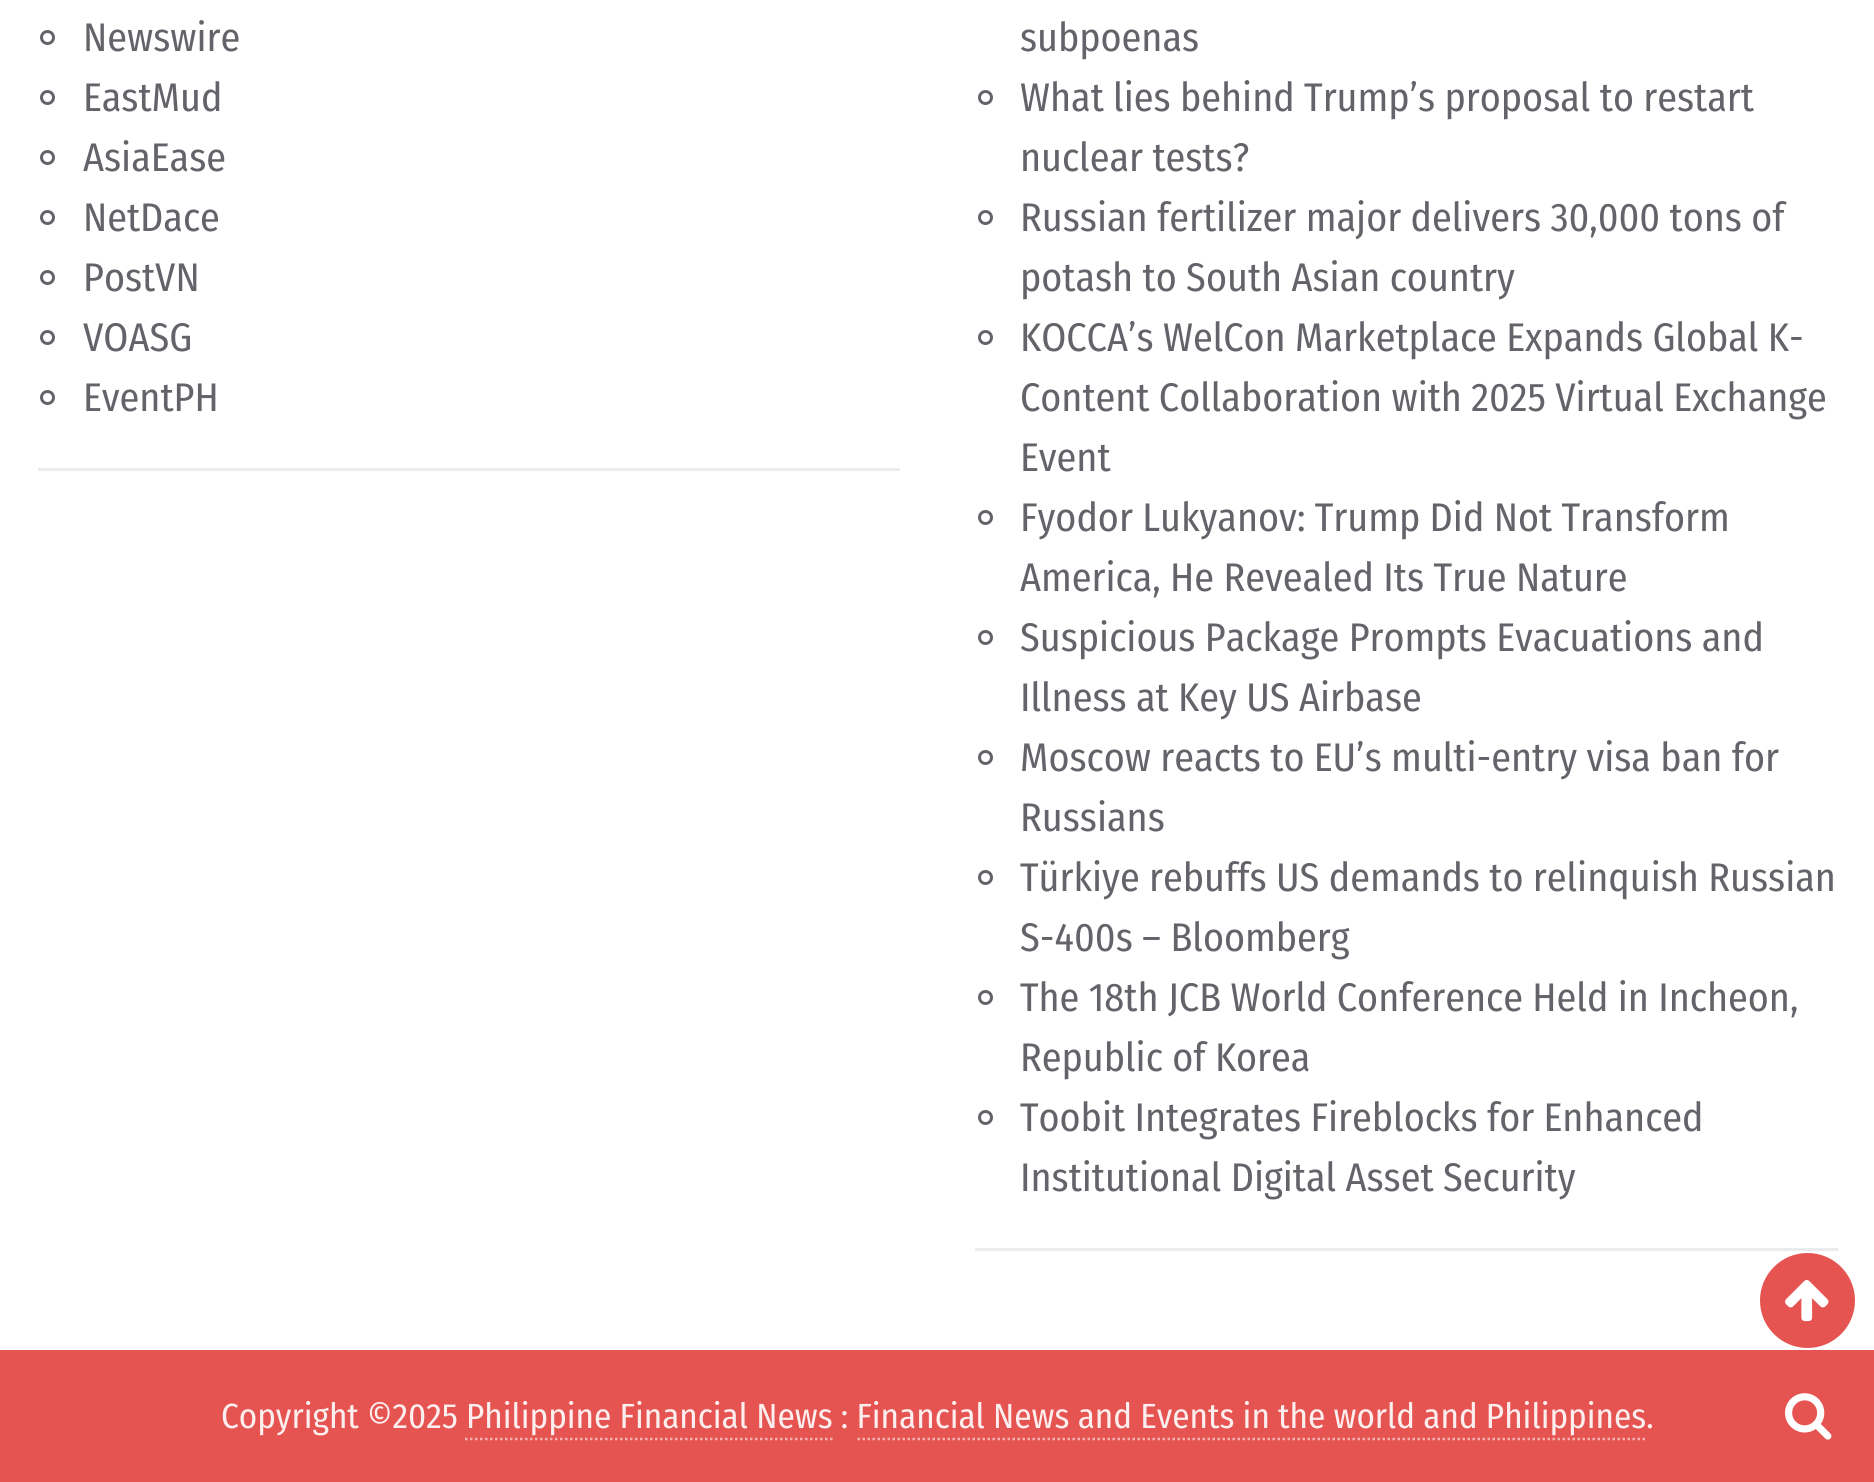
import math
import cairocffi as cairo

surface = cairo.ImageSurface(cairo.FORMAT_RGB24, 1874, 1482)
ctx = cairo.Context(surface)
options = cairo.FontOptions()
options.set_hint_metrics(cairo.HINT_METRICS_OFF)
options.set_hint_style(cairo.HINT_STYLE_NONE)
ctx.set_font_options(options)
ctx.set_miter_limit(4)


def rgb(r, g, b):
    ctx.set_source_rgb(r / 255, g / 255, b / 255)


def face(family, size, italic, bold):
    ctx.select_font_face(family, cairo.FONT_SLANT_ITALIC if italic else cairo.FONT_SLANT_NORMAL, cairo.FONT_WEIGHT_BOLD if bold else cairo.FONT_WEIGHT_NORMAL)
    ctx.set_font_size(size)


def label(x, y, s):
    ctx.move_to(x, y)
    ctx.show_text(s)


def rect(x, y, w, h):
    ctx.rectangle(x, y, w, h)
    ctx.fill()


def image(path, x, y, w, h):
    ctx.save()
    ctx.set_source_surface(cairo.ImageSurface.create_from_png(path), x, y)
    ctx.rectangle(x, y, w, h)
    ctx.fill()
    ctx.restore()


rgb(255, 255, 255)
ctx.paint()
rgb(233, 236, 239)
rect(38, 468, 862, 3)
ctx.arc(47.5, 37.5, 6, 0, 2 * math.pi)
rgb(99, 99, 105)
ctx.set_line_width(3)
ctx.stroke()
face('Fira Sans Condensed', 40, 0, 0)
label(83, 51, 'Newswire')
ctx.new_path()
ctx.arc(47.5, 97.5, 6, 0, 2 * math.pi)
ctx.stroke()
label(83, 111, 'EastMud')
ctx.new_path()
ctx.arc(47.5, 157.5, 6, 0, 2 * math.pi)
ctx.stroke()
label(83, 171, 'AsiaEase')
ctx.new_path()
ctx.arc(47.5, 217.5, 6, 0, 2 * math.pi)
ctx.stroke()
label(83, 231, 'NetDace')
ctx.new_path()
ctx.arc(47.5, 277.5, 6, 0, 2 * math.pi)
ctx.stroke()
label(83, 291, 'PostVN')
ctx.new_path()
ctx.arc(47.5, 337.5, 6, 0, 2 * math.pi)
ctx.stroke()
label(83, 351, 'VOASG')
ctx.new_path()
ctx.arc(47.5, 397.5, 6, 0, 2 * math.pi)
ctx.stroke()
label(83, 411, 'EventPH')
rgb(233, 236, 239)
rect(975, 1248, 863, 3)
rgb(99, 99, 105)
label(1020, 51, 'subpoenas')
ctx.new_path()
ctx.arc(985.5, 97.5, 6, 0, 2 * math.pi)
ctx.stroke()
label(1020, 111, 'What lies behind Trump’s proposal to restart')
label(1020, 171, 'nuclear tests?')
ctx.new_path()
ctx.arc(985.5, 217.5, 6, 0, 2 * math.pi)
ctx.stroke()
label(1020, 231, 'Russian fertilizer major delivers 30,000 tons of')
label(1020, 291, 'potash to South Asian country')
ctx.new_path()
ctx.arc(985.5, 337.5, 6, 0, 2 * math.pi)
ctx.stroke()
label(1020, 351, 'KOCCA’s WelCon Marketplace Expands Global K-')
label(1020, 411, 'Content Collaboration with 2025 Virtual Exchange')
label(1020, 471, 'Event')
ctx.new_path()
ctx.arc(985.5, 517.5, 6, 0, 2 * math.pi)
ctx.stroke()
label(1020, 531, 'Fyodor Lukyanov: Trump Did Not Transform')
label(1020, 591, 'America, He Revealed Its True Nature')
ctx.new_path()
ctx.arc(985.5, 637.5, 6, 0, 2 * math.pi)
ctx.stroke()
label(1020, 651, 'Suspicious Package Prompts Evacuations and')
label(1020, 711, 'Illness at Key US Airbase')
ctx.new_path()
ctx.arc(985.5, 757.5, 6, 0, 2 * math.pi)
ctx.stroke()
label(1020, 771, 'Moscow reacts to EU’s multi-entry visa ban for')
label(1020, 831, 'Russians')
ctx.new_path()
ctx.arc(985.5, 877.5, 6, 0, 2 * math.pi)
ctx.stroke()
label(1020, 891, 'Türkiye rebuffs US demands to relinquish Russian')
label(1020, 951, 'S-400s – Bloomberg')
ctx.new_path()
ctx.arc(985.5, 997.5, 6, 0, 2 * math.pi)
ctx.stroke()
label(1020, 1011, 'The 18th JCB World Conference Held in Incheon,')
label(1020, 1071, 'Republic of Korea')
ctx.new_path()
ctx.arc(985.5, 1117.5, 6, 0, 2 * math.pi)
ctx.stroke()
label(1020, 1131, 'Toobit Integrates Fireblocks for Enhanced')
label(1020, 1191, 'Institutional Digital Asset Security')
rgb(229, 84, 81)
rect(0, 1350, 1874, 132)
face('Fira Sans Condensed', 35, 0, 0)
rgb(252, 238, 238)
label(221, 1428, 'Copyright ©2025 Philippine Financial News : Financial News and Events in the world and Philippines.')
ctx.new_path()
ctx.move_to(465, 1439)
ctx.line_to(832.5, 1439)
rgb(243, 178, 177)
ctx.set_line_width(2.5)
ctx.set_dash([2.5, 2.5])
ctx.stroke()
ctx.new_path()
ctx.move_to(857.5, 1439)
ctx.line_to(1647.5, 1439)
ctx.stroke()
image('image0.png', 1785, 1393, 47, 47)
rgb(229, 84, 81)
ctx.arc(1807.5, 1300.5, 47.5, 0, 2 * math.pi)
ctx.fill()
image('image1.png', 1785, 1280, 44, 42)
surface.write_to_png('render.png')
